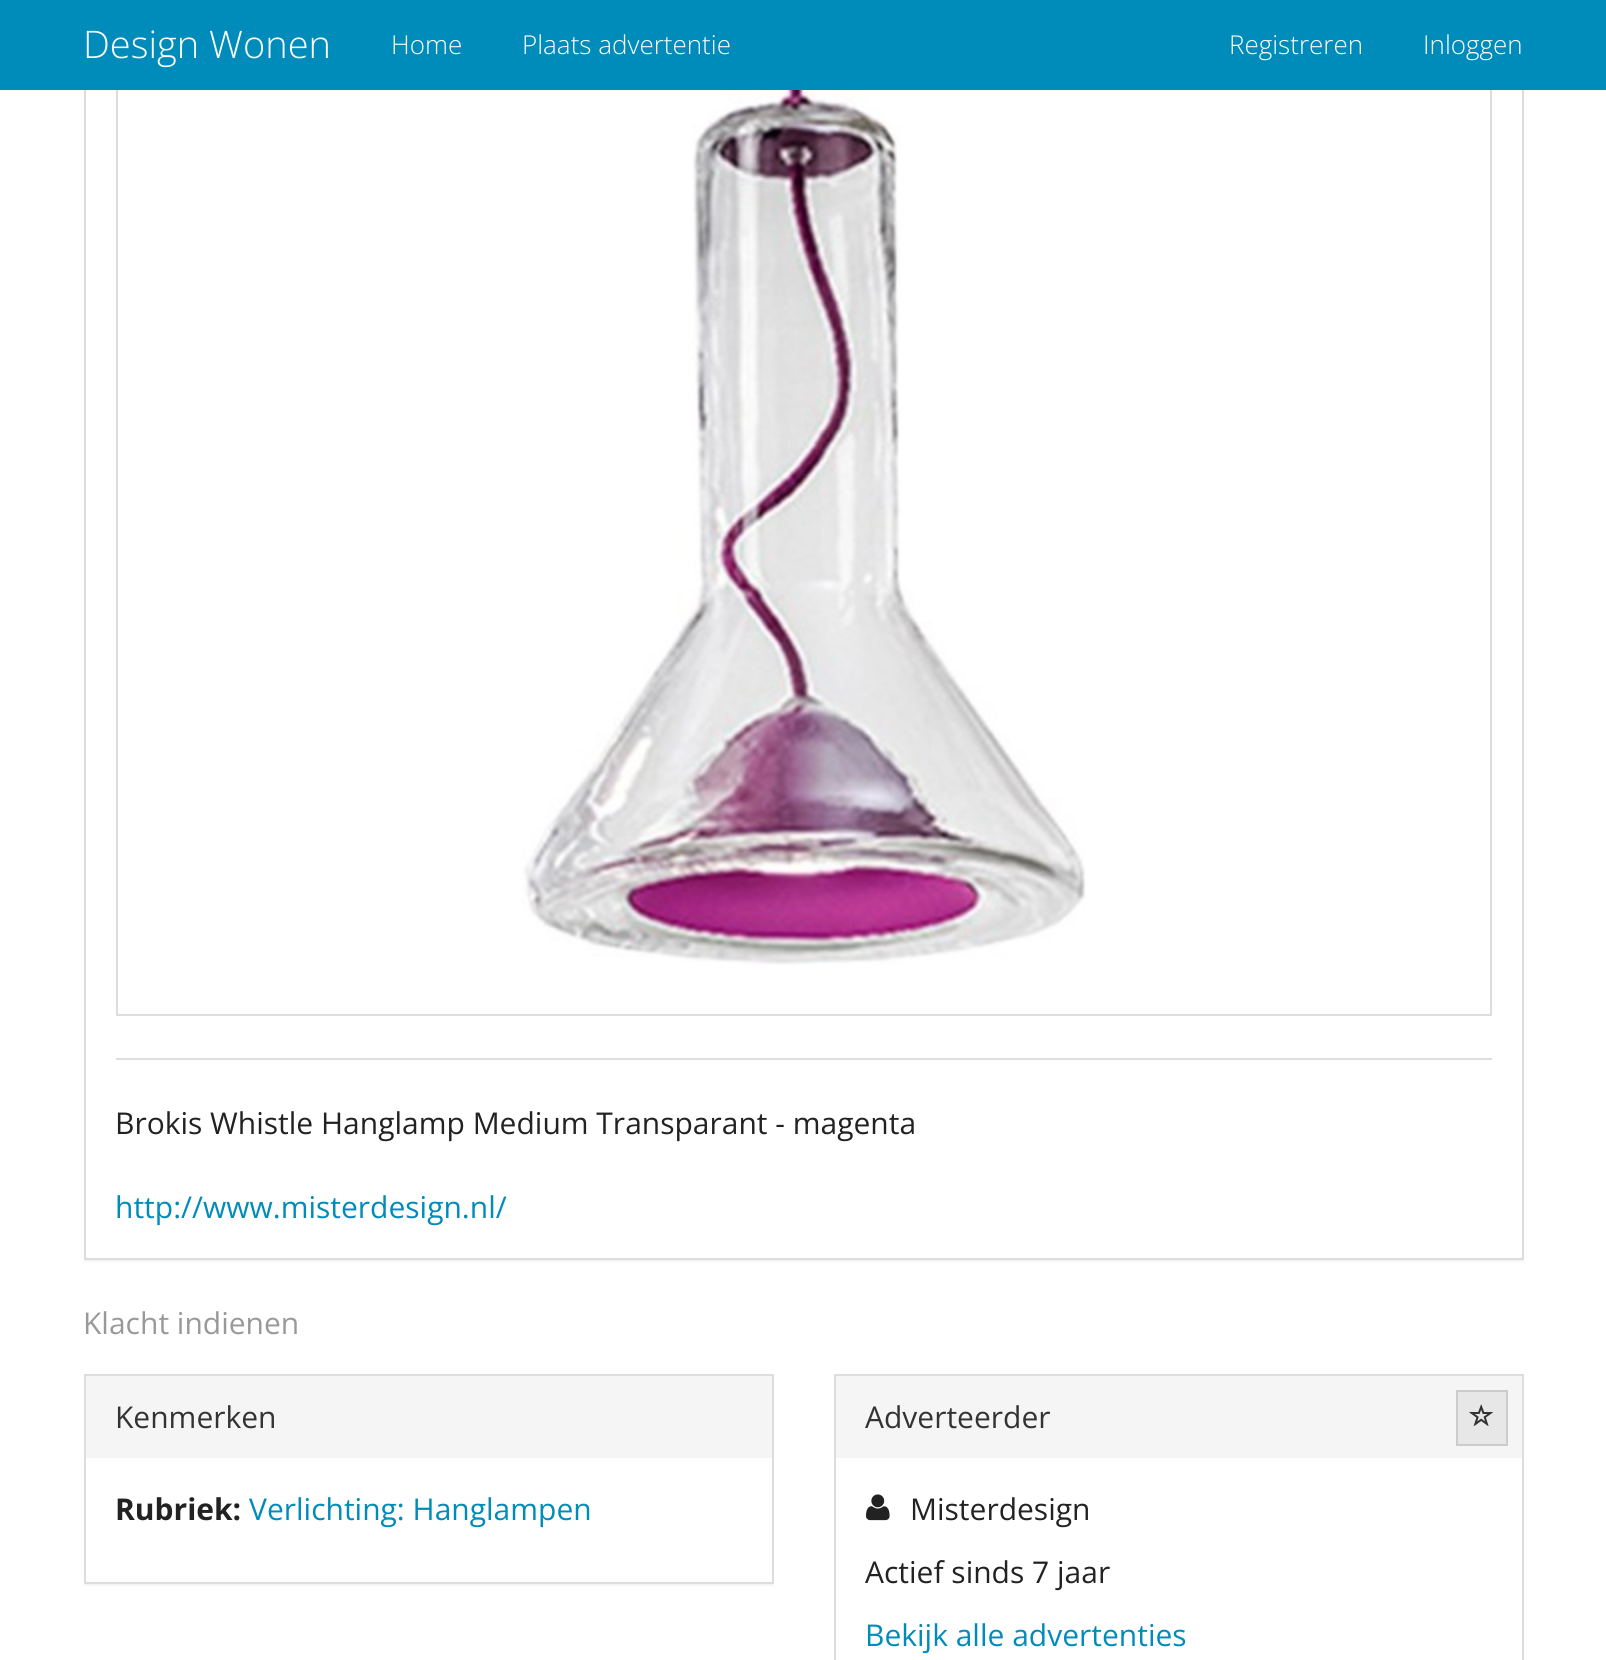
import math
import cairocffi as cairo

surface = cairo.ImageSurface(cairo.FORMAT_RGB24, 1606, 1660)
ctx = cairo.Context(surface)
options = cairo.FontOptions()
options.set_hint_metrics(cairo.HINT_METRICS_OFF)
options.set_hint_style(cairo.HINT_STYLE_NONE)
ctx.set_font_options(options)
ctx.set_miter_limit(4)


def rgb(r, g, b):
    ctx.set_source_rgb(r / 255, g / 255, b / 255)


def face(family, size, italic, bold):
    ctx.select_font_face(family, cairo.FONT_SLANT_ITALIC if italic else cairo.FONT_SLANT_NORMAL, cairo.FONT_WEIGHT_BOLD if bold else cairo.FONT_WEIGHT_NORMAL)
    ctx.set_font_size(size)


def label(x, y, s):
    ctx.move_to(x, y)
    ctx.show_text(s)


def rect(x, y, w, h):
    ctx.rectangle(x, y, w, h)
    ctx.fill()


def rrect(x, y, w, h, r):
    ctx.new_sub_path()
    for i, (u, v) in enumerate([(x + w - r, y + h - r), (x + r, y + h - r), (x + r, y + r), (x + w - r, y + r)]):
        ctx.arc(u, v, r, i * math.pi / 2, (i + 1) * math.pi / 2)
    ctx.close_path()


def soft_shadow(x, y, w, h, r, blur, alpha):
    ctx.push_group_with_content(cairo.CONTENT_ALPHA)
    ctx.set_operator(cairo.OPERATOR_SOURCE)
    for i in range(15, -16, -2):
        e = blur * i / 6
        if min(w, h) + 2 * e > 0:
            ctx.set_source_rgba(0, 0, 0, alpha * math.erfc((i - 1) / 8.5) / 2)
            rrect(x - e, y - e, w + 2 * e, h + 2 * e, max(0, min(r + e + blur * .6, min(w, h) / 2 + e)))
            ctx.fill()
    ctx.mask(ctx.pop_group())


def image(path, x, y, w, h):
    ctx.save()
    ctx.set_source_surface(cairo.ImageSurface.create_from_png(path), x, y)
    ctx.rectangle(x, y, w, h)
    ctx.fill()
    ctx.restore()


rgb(255, 255, 255)
ctx.paint()
ctx.save()
ctx.rectangle(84, 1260, 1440, 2)
ctx.clip()
rgb(0, 0, 0)
soft_shadow(84, -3, 1440, 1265, 0, 1, 0.05)
ctx.restore()
ctx.rectangle(85, -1, 1438, 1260)
rgb(221, 221, 221)
ctx.stroke()
ctx.rectangle(117, -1, 1374, 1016)
ctx.stroke()
rgb(0, 140, 186)
rect(0, 0, 1606, 90)
face('Open Sans Light', 38, 0, 0)
rgb(255, 255, 255)
label(83, 58, 'Design Wonen')
face('Open Sans Light', 26, 0, 0)
label(391, 54, 'Home')
label(522, 54, 'Plaats advertentie')
label(1229, 54, 'Registreren')
label(1423, 54, 'Inloggen')
image('image0.png', 522, 90, 564, 875)
rgb(221, 221, 221)
rect(116, 1058, 1376, 2)
face('Open Sans', 30, 0, 0)
rgb(34, 34, 34)
label(115, 1134, 'Brokis Whistle Hanglamp Medium Transparant - magenta')
rgb(0, 140, 186)
label(115, 1218, 'http://www.misterdesign.nl/')
rgb(153, 153, 153)
label(83, 1334, 'Klacht indienen')
ctx.save()
ctx.rectangle(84, 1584, 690, 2)
ctx.clip()
rgb(0, 0, 0)
soft_shadow(84, 1376, 690, 210, 0, 1, 0.05)
ctx.restore()
ctx.rectangle(85, 1375, 688, 208)
rgb(221, 221, 221)
ctx.stroke()
rgb(245, 245, 245)
rect(86, 1376, 686, 82)
rgb(51, 51, 51)
label(115, 1428, 'Kenmerken')
face('Open Sans', 30, 0, 1)
rgb(34, 34, 34)
label(115, 1520, 'Rubriek:')
face('Open Sans', 30, 0, 0)
rgb(0, 140, 186)
label(249, 1520, 'Verlichting: Hanglampen')
ctx.rectangle(835, 1375, 688, 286)
rgb(221, 221, 221)
ctx.stroke()
rgb(245, 245, 245)
rect(836, 1376, 686, 82)
rgb(51, 51, 51)
label(865, 1428, 'Adverteerder')
rgb(231, 231, 231)
ctx.rectangle(1457, 1391, 50, 54)
ctx.fill_preserve()
rgb(204, 204, 204)
ctx.stroke()
image('image1.png', 1469, 1404, 24, 22)
image('image2.png', 866, 1494, 24, 27)
rgb(34, 34, 34)
label(910, 1520, 'Misterdesign')
label(865, 1583, 'Actief sinds 7 jaar')
rgb(0, 140, 186)
label(865, 1646, 'Bekijk alle advertenties')
surface.write_to_png('render.png')
